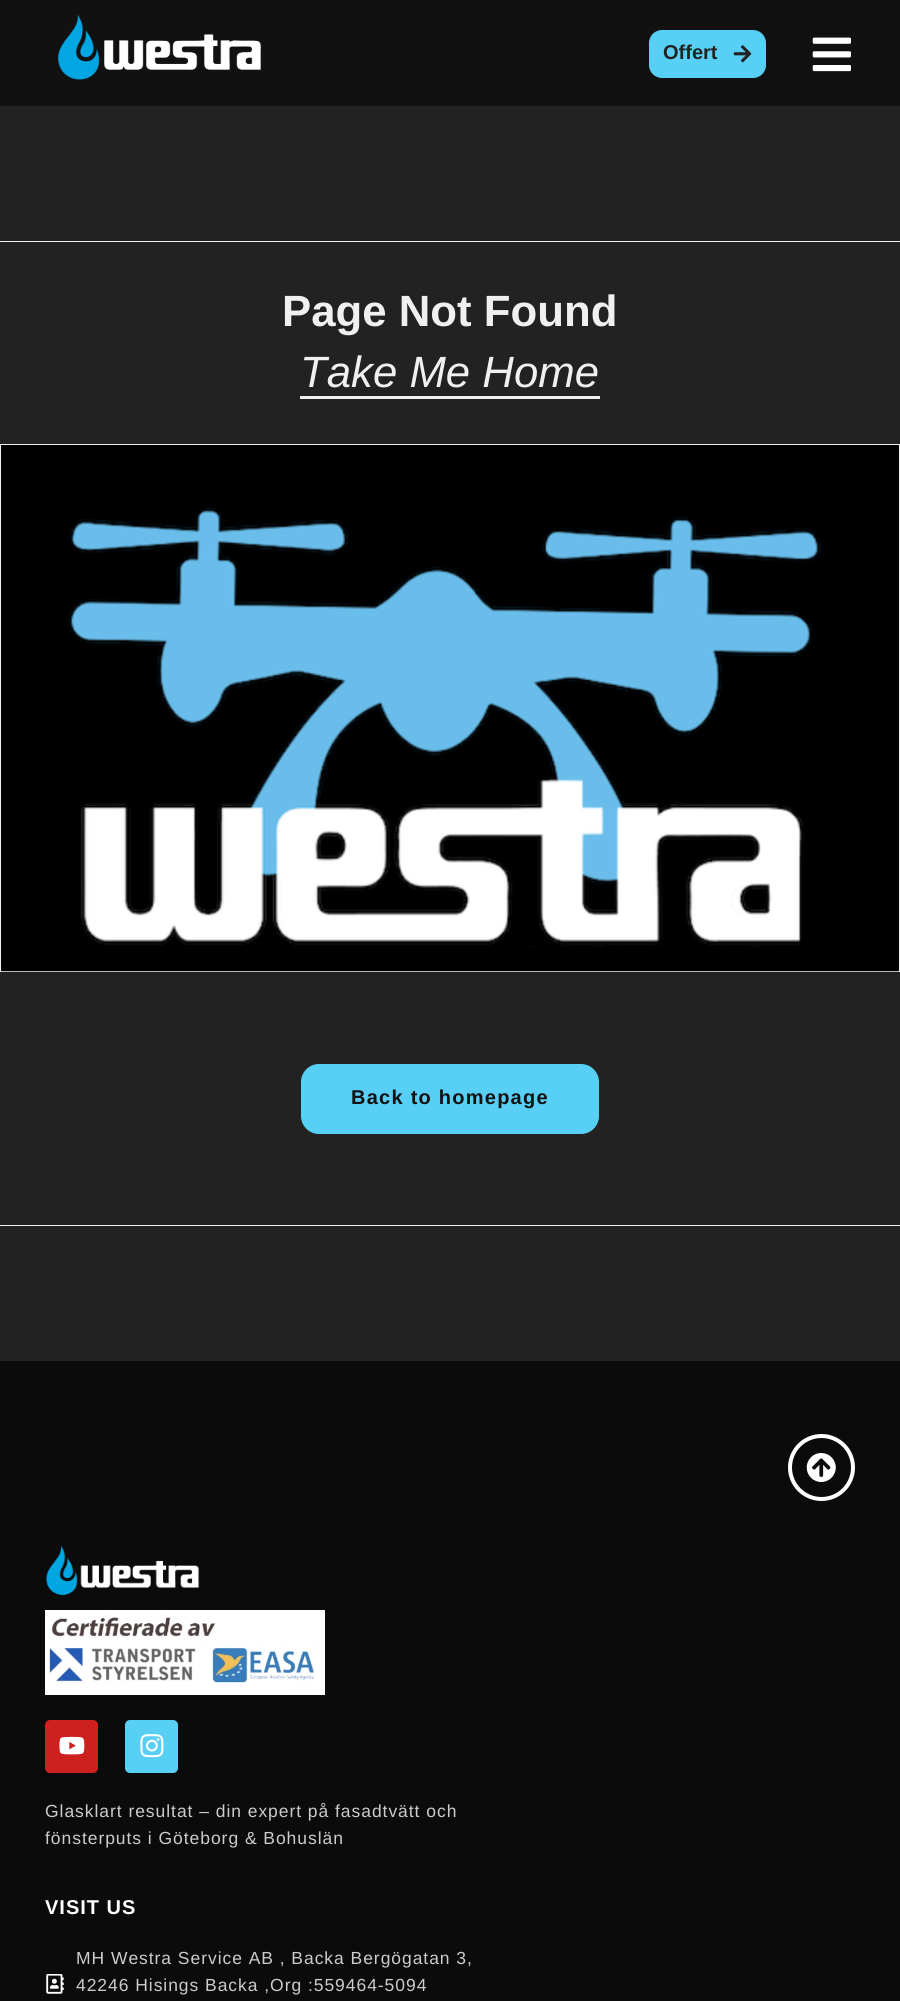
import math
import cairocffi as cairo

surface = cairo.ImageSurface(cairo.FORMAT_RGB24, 900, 2001)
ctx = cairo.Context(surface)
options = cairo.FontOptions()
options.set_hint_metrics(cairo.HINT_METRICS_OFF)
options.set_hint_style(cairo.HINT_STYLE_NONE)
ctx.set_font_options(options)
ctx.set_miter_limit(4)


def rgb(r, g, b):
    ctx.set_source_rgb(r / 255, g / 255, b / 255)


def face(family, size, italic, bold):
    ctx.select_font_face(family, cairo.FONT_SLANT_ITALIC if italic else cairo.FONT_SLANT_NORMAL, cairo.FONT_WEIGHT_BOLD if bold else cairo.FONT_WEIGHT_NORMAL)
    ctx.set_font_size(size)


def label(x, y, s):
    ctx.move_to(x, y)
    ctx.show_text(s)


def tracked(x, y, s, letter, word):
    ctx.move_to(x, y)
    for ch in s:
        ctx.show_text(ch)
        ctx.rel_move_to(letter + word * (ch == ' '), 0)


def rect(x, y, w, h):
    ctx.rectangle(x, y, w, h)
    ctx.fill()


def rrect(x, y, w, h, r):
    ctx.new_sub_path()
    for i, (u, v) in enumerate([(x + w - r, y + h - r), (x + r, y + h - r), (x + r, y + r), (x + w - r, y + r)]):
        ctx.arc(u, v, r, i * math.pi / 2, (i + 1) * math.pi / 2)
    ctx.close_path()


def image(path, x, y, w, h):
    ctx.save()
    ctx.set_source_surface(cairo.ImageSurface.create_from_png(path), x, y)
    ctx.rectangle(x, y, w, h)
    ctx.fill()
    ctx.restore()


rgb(11, 11, 11)
ctx.paint()
rgb(17, 17, 17)
rect(0, 0, 900, 106)
image('image0.png', 57, 15, 204, 65)
rgb(88, 208, 245)
rrect(649.5, 30.5, 116, 47, 12.5)
ctx.fill_preserve()
ctx.set_line_width(1)
ctx.stroke()
face('Liberation Sans', 20, 0, 1)
rgb(34, 34, 34)
label(663, 59, 'Offert')
image('image1.png', 733, 45, 19, 18)
image('image2.png', 812, 37, 39, 35)
rect(0, 106, 900, 1255)
rgb(240, 240, 240)
rect(0, 241, 900, 1)
face('Liberation Sans', 43.75, 0, 1)
label(282, 326, 'Page Not Found')
rect(300, 396, 300, 3)
face('Liberation Sans', 43.75, 1, 0)
label(300, 387, 'Take Me Home')
rect(0, 444, 900, 1)
rect(0, 971, 900, 1)
rect(899, 445, 1, 526)
rect(0, 445, 1, 526)
image('image3.png', 1, 445, 898, 527)
rect(0, 1225, 900, 1)
rgb(88, 208, 245)
rrect(300.5, 1063.5, 299, 71, 18.5)
ctx.fill_preserve()
rgb(34, 34, 34)
ctx.stroke()
face('Liberation Sans', 20, 0, 1)
rgb(17, 17, 17)
tracked(351, 1104, 'Back to homepage', 1.25, 0)
ctx.new_path()
ctx.arc(821.5, 1467.5, 31.5, 0, 2 * math.pi)
rgb(255, 255, 255)
ctx.set_line_width(4)
ctx.stroke()
image('image4.png', 806, 1453, 30, 29)
image('image5.png', 46, 1546, 154, 50)
image('image6.png', 45, 1610, 280, 85)
rgb(205, 32, 31)
rrect(45, 1720, 53, 53, 5)
ctx.fill()
image('image7.png', 59, 1736, 26, 19)
rgb(88, 208, 245)
rrect(125, 1720, 53, 53, 5)
ctx.fill()
image('image8.png', 140, 1734, 24, 24)
face('Liberation Sans', 17.5, 0, 0)
rgb(204, 204, 204)
tracked(45, 1817, 'Glasklart resultat – din expert på fasadtvätt och', 0.95, 0)
tracked(45, 1844, 'fönsterputs i Göteborg & Bohuslän', 0.95, 0)
face('Liberation Sans', 20, 0, 1)
rgb(255, 255, 255)
tracked(45, 1914, 'VISIT US', 1, 0)
image('image9.png', 46, 1974, 18, 20)
face('Liberation Sans', 17.5, 0, 0)
rgb(204, 204, 204)
tracked(76, 1964, 'MH Westra Service AB , Backa Bergögatan 3,', 0.95, 0)
tracked(76, 1991, '42246 Hisings Backa ,Org :559464-5094', 0.95, 0)
surface.write_to_png('render.png')
